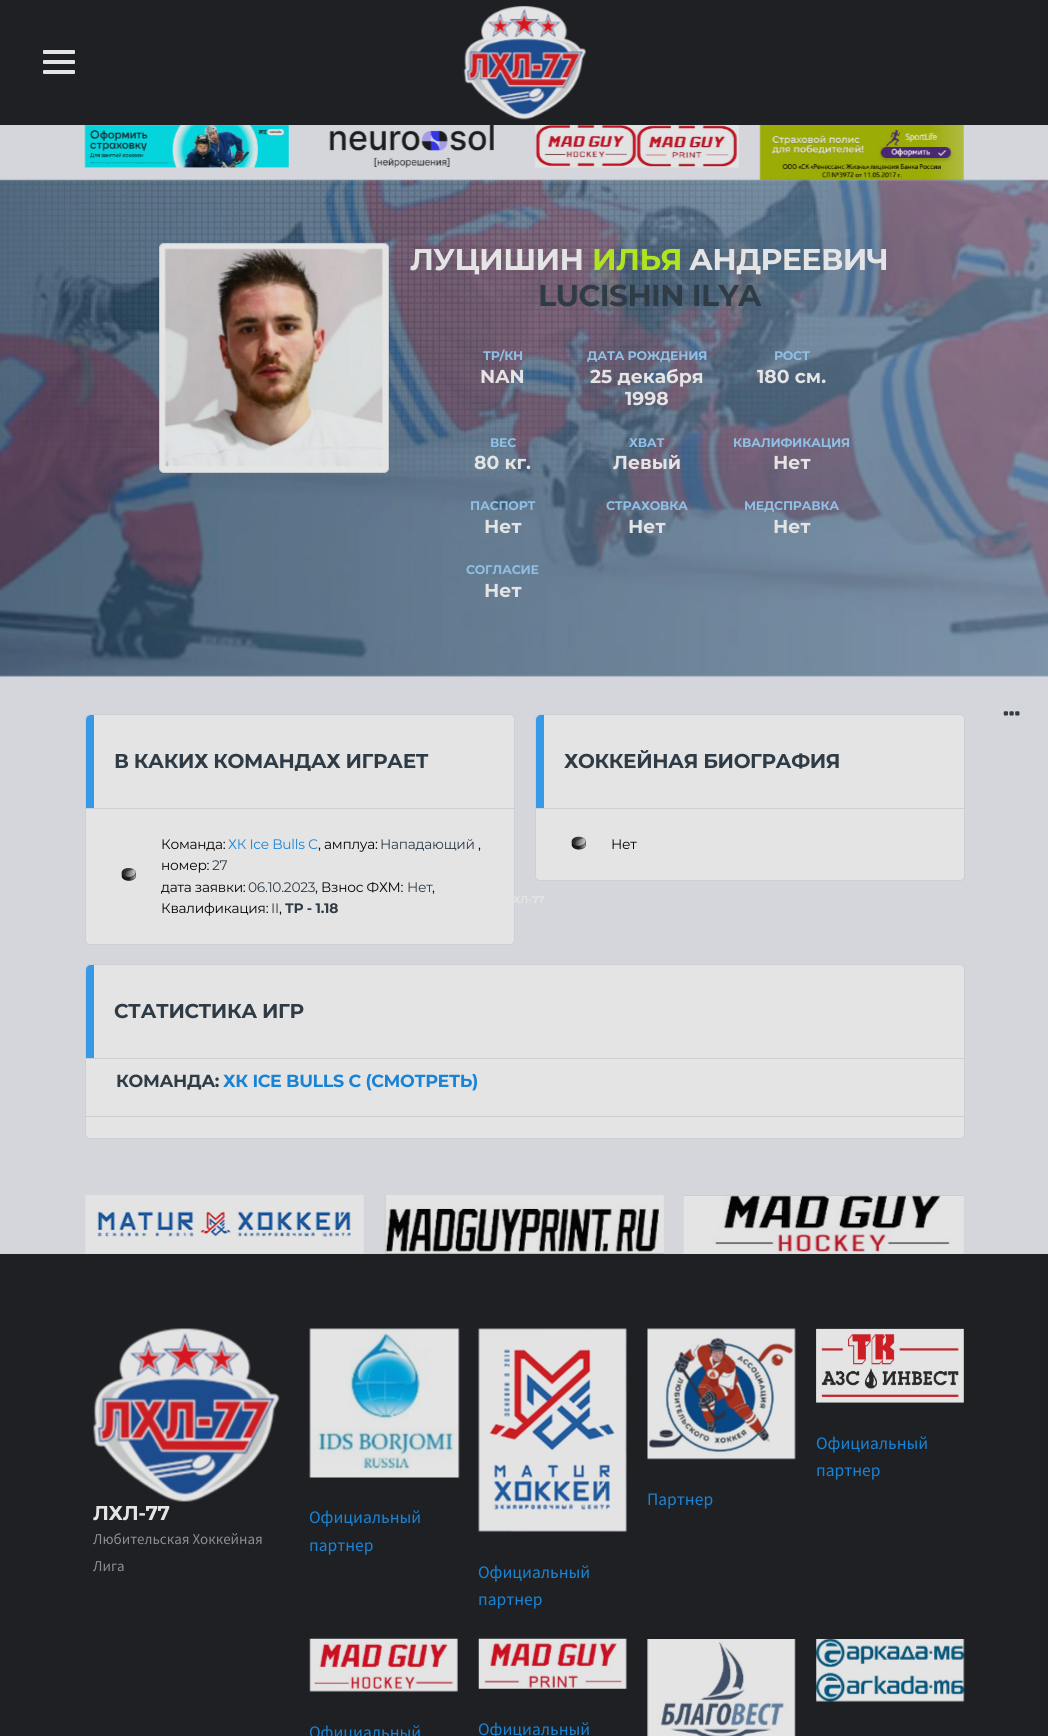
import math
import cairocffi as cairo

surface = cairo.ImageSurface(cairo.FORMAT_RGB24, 1048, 1736)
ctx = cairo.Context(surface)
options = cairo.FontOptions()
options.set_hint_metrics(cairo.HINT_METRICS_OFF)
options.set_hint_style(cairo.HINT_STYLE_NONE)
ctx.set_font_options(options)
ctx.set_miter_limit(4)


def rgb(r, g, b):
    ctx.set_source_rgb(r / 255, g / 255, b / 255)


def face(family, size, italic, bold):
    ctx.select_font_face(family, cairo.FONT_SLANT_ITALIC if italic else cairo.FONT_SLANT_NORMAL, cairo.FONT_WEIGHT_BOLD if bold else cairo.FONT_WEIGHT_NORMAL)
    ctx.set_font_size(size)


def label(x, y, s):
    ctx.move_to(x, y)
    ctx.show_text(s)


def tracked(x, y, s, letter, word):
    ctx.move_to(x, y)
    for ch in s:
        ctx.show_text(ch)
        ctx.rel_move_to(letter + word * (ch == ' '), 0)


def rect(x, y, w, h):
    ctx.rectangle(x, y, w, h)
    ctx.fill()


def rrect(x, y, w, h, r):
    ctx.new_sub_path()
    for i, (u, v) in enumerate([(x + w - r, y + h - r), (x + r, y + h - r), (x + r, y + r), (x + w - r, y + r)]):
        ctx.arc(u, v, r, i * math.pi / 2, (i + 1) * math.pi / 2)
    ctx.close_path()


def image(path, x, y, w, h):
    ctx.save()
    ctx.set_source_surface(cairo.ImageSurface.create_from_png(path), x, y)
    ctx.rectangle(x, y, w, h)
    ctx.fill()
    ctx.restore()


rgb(212, 214, 219)
ctx.paint()
rgb(30, 32, 36)
rect(0, 0, 1048, 125)
rgb(228, 228, 229)
rrect(43, 50, 32, 4, 1)
ctx.fill()
rrect(43, 60, 32, 4, 1)
ctx.fill()
rrect(43, 70, 32, 4, 1)
ctx.fill()
image('image0.png', 463, 6, 123, 114)
image('image1.png', 84, 125, 205, 43)
image('image2.png', 329, 125, 165, 43)
image('image3.png', 535, 125, 204, 43)
image('image4.png', 759, 125, 205, 55)
image('image5.png', 0, 179, 1048, 498)
image('image6.png', 0, 180, 828, 296)
rrect(159.5, 243.5, 229, 229, 4.5)
ctx.fill_preserve()
rgb(199, 203, 207)
ctx.set_line_width(1)
ctx.stroke()
image('image7.png', 164, 248, 219, 219)
face('Montserrat', 30, 0, 1)
rgb(228, 228, 229)
tracked(410, 270, 'ЛУЦИШИН', -0.6, 0)
rgb(174, 228, 32)
tracked(592, 270, 'ИЛЬЯ', -0.6, 0)
rgb(228, 228, 229)
tracked(689, 270, 'АНДРЕЕВИЧ', -0.6, 0)
rgb(47, 60, 70)
tracked(538, 306, 'LUCISHIN ILYA', -0.6, 0)
face('Montserrat', 12.5, 0, 1)
rgb(143, 191, 229)
tracked(483, 360, 'ТР/КН', -0.25, 0)
face('Montserrat', 18.75, 0, 1)
rgb(228, 228, 229)
label(480, 383, 'NAN')
face('Montserrat', 12.5, 0, 1)
rgb(143, 191, 229)
tracked(587, 360, 'ДАТА РОЖДЕНИЯ', -0.25, 0)
face('Montserrat', 18.75, 0, 1)
rgb(228, 228, 229)
label(590, 383, '25 декабря')
label(625, 405, '1998')
face('Montserrat', 12.5, 0, 1)
rgb(143, 191, 229)
tracked(774, 360, 'РОСТ', -0.25, 0)
face('Montserrat', 18.75, 0, 1)
rgb(228, 228, 229)
label(757, 383, '180 см.')
face('Montserrat', 12.5, 0, 1)
rgb(143, 191, 229)
tracked(490, 447, 'ВЕС', -0.25, 0)
face('Montserrat', 18.75, 0, 1)
rgb(228, 228, 229)
label(474, 469, '80 кг.')
face('Montserrat', 12.5, 0, 1)
rgb(143, 191, 229)
tracked(629, 447, 'ХВАТ', -0.25, 0)
face('Montserrat', 18.75, 0, 1)
rgb(228, 228, 229)
label(613, 469, 'Левый')
face('Montserrat', 12.5, 0, 1)
rgb(143, 191, 229)
tracked(733, 447, 'КВАЛИФИКАЦИЯ', -0.25, 0)
face('Montserrat', 18.75, 0, 1)
rgb(228, 228, 229)
label(773, 469, 'Нет')
face('Montserrat', 12.5, 0, 1)
rgb(143, 191, 229)
tracked(470, 510, 'ПАСПОРТ', -0.25, 0)
face('Montserrat', 18.75, 0, 1)
rgb(228, 228, 229)
label(484, 533, 'Нет')
face('Montserrat', 12.5, 0, 1)
rgb(143, 191, 229)
tracked(606, 510, 'СТРАХОВКА', -0.25, 0)
face('Montserrat', 18.75, 0, 1)
rgb(228, 228, 229)
label(628, 533, 'Нет')
face('Montserrat', 12.5, 0, 1)
rgb(143, 191, 229)
tracked(744, 510, 'МЕДСПРАВКА', -0.25, 0)
face('Montserrat', 18.75, 0, 1)
rgb(228, 228, 229)
label(773, 533, 'Нет')
face('Montserrat', 12.5, 0, 1)
rgb(143, 191, 229)
tracked(466, 574, 'СОГЛАСИЕ', -0.25, 0)
face('Montserrat', 18.75, 0, 1)
rgb(228, 228, 229)
label(484, 597, 'Нет')
image('image8.png', 1003, 711, 17, 5)
rrect(85.5, 714.5, 429, 230, 4.5)
ctx.fill_preserve()
rgb(204, 207, 213)
ctx.stroke()
rect(86, 808, 428, 1)
rgb(53, 153, 229)
ctx.new_path()
ctx.move_to(91, 715)
ctx.line_to(94, 715)
ctx.line_to(94, 808)
ctx.line_to(86, 808)
ctx.line_to(86, 720)
ctx.curve_to(86, 717, 88, 715, 91, 715)
ctx.close_path()
ctx.fill()
face('Montserrat', 20, 0, 1)
rgb(47, 60, 70)
tracked(114, 768, 'В КАКИХ КОМАНДАХ ИГРАЕТ', -0.4, 0)
face('Montserrat', 13.75, 0, 0)
rgb(4, 4, 4)
tracked(161, 849, 'Команда:', -0.25, 0)
rgb(25, 132, 213)
tracked(228, 849, 'ХК Ice Bulls С', -0.25, 0)
rgb(4, 4, 4)
tracked(318, 849, ', амплуа:', -0.25, 0)
rgb(47, 60, 70)
tracked(380, 849, 'Нападающий', -0.25, 0)
rgb(4, 4, 4)
tracked(478, 849, ',', -0.25, 0)
image('image9.png', 121, 868, 15, 13)
tracked(161, 870, 'номер:', -0.25, 0)
rgb(47, 60, 70)
tracked(212, 870, '27', -0.25, 0)
rgb(4, 4, 4)
tracked(161, 892, 'дата заявки:', -0.25, 0)
rgb(47, 60, 70)
tracked(248, 892, '06.10.2023', -0.25, 0)
rgb(4, 4, 4)
tracked(315, 892, ', Взнос ФХМ:', -0.25, 0)
rgb(47, 60, 70)
tracked(407, 892, 'Нет', -0.25, 0)
rgb(4, 4, 4)
tracked(432, 892, ',', -0.25, 0)
tracked(161, 913, 'Квалификация:', -0.25, 0)
rgb(47, 60, 70)
tracked(271, 913, 'II', -0.25, 0)
rgb(4, 4, 4)
tracked(279, 913, ',', -0.25, 0)
face('Montserrat', 13.75, 0, 1)
rgb(47, 60, 70)
tracked(285, 913, 'ТР - 1.18', -0.25, 0)
rgb(228, 228, 229)
rrect(535.5, 714.5, 429, 166, 4.5)
ctx.fill_preserve()
rgb(204, 207, 213)
ctx.stroke()
rect(536, 808, 428, 1)
rgb(53, 153, 229)
ctx.new_path()
ctx.move_to(541, 715)
ctx.line_to(544, 715)
ctx.line_to(544, 808)
ctx.line_to(536, 808)
ctx.line_to(536, 720)
ctx.curve_to(536, 717, 538, 715, 541, 715)
ctx.close_path()
ctx.fill()
face('Montserrat', 20, 0, 1)
rgb(47, 60, 70)
tracked(564, 768, 'ХОККЕЙНАЯ БИОГРАФИЯ', -0.4, 0)
image('image10.png', 571, 836, 15, 14)
face('Montserrat', 13.75, 0, 0)
rgb(4, 4, 4)
tracked(611, 849, 'Нет', -0.25, 0)
rgb(228, 228, 229)
rrect(85.5, 964.5, 879, 174, 4.5)
ctx.fill_preserve()
rgb(204, 207, 213)
ctx.stroke()
rect(86, 1058, 878, 1)
rgb(53, 153, 229)
ctx.new_path()
ctx.move_to(91, 965)
ctx.line_to(94, 965)
ctx.line_to(94, 1058)
ctx.line_to(86, 1058)
ctx.line_to(86, 970)
ctx.curve_to(86, 967, 88, 965, 91, 965)
ctx.close_path()
ctx.fill()
face('Montserrat', 20, 0, 1)
rgb(47, 60, 70)
tracked(114, 1018, 'СТАТИСТИКА ИГР', -0.4, 0)
face('Montserrat', 17.5, 0, 1)
tracked(116, 1087, 'КОМАНДА:', -0.35, 0)
rgb(25, 132, 213)
tracked(223, 1087, 'ХК ICE BULLS С (СМОТРЕТЬ)', -0.35, 0)
rgb(206, 206, 207)
rect(86, 1116, 878, 1)
image('image11.png', 85, 1195, 279, 59)
image('image12.png', 384, 1195, 280, 59)
image('image13.png', 683, 1195, 281, 59)
rgb(30, 32, 36)
rect(0, 1254, 1048, 482)
image('image14.png', 93, 1328, 187, 174)
face('Montserrat', 20, 0, 1)
rgb(228, 228, 229)
tracked(93, 1520, 'ЛХЛ-77', -0.4, 0)
face('Source Sans Pro', 15, 0, 0)
rgb(139, 142, 147)
label(93, 1544, 'Любительская Хоккейная')
label(93, 1571, 'Лига')
image('image15.png', 816, 1328, 148, 75)
face('Source Sans Pro', 17.5, 0, 0)
rgb(25, 132, 213)
label(816, 1449, 'Официальный')
label(816, 1476, 'партнер')
image('image16.png', 647, 1328, 149, 132)
label(647, 1505, 'Партнер')
image('image17.png', 309, 1328, 151, 150)
label(309, 1523, 'Официальный')
label(309, 1551, 'партнер')
image('image18.png', 478, 1328, 149, 204)
label(478, 1578, 'Официальный')
label(478, 1605, 'партнер')
image('image19.png', 647, 1639, 149, 97)
image('image20.png', 816, 1639, 149, 63)
image('image21.png', 309, 1638, 149, 54)
label(309, 1738, 'Официальный')
image('image22.png', 478, 1638, 149, 51)
label(478, 1735, 'Официальный')
face('Montserrat', 10, 0, 1)
rgb(228, 228, 229)
label(513, 903, 'ХЛ-77')
surface.write_to_png('render.png')
